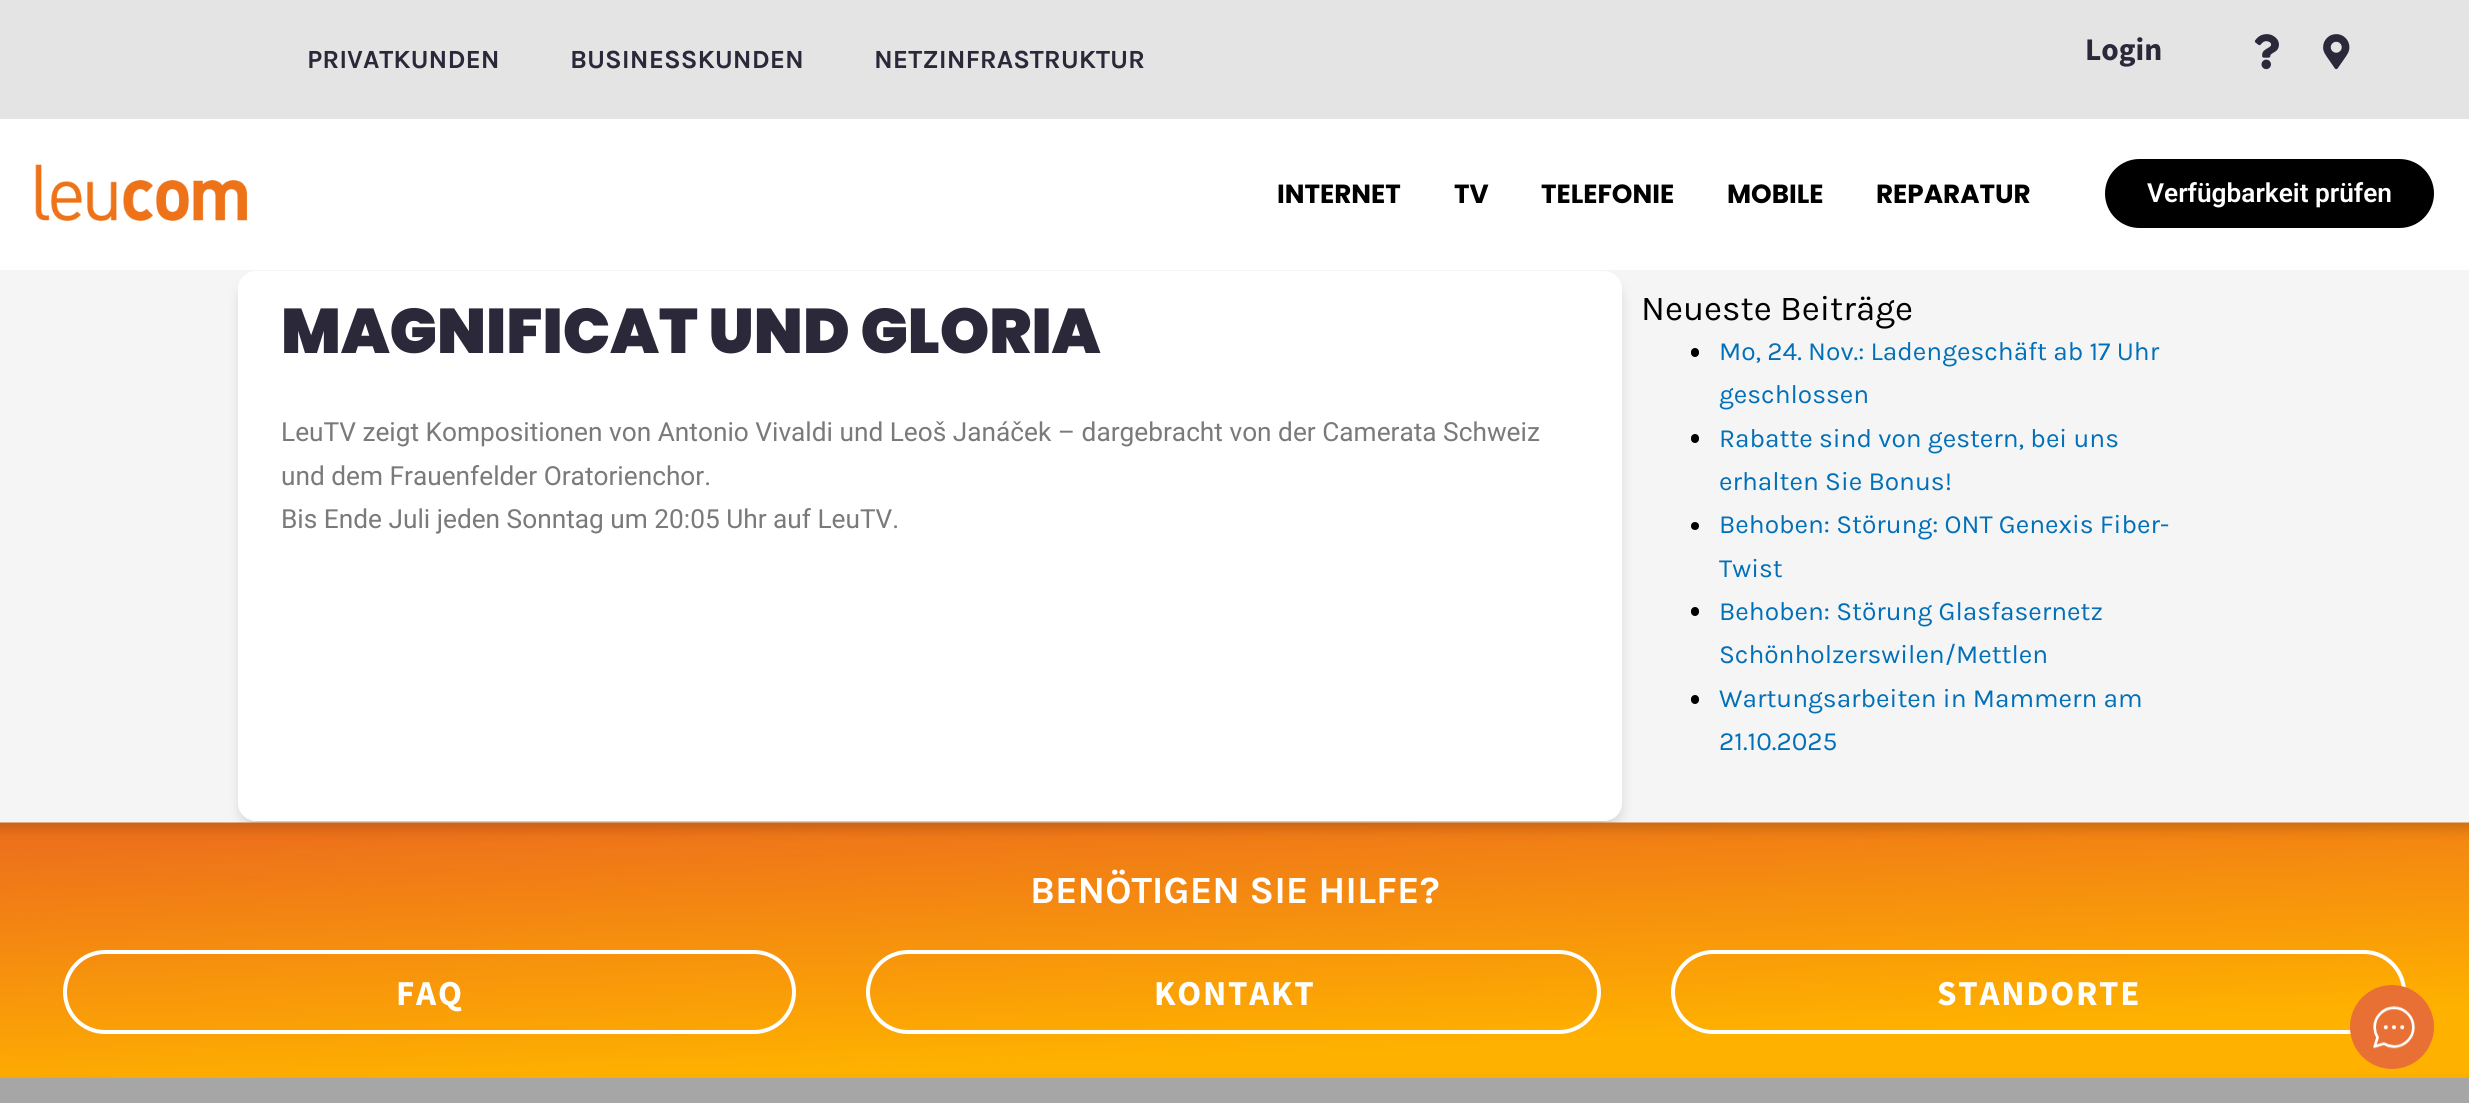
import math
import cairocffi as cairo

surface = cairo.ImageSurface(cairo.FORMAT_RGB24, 2469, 1103)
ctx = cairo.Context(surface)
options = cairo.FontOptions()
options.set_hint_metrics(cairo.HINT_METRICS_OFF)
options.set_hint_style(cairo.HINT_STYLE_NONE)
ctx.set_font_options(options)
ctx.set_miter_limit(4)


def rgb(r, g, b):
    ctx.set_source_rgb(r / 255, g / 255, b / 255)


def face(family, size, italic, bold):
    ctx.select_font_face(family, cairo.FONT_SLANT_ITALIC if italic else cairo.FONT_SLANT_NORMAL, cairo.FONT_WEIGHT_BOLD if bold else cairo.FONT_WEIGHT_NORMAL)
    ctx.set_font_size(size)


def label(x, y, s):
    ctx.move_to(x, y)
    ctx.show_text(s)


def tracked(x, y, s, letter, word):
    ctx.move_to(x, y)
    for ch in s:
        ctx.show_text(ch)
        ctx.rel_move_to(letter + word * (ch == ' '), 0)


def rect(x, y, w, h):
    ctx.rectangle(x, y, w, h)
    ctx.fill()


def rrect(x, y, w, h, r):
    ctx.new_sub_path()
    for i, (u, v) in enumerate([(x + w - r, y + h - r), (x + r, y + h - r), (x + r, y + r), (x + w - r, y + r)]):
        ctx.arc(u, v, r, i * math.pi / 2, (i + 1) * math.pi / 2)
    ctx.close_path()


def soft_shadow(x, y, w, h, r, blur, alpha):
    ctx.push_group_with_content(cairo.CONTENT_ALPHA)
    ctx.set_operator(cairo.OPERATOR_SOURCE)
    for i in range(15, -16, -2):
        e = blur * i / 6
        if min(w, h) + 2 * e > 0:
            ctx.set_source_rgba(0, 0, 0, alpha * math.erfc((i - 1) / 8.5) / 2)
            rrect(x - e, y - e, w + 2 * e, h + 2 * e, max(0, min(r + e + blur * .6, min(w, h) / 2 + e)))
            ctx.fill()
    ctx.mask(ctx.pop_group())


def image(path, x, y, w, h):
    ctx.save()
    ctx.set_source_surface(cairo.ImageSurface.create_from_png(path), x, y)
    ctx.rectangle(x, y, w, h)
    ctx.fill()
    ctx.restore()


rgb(245, 245, 245)
ctx.paint()
rgb(228, 228, 228)
rect(0, 0, 2469, 119)
face('Karla', 26.25, 0, 1)
rgb(43, 40, 58)
label(307, 68, 'PRIVATKUNDEN')
label(570, 68, 'BUSINESSKUNDEN')
label(874, 68, 'NETZINFRASTRUKTUR')
face('Source Sans Pro', 31.5, 0, 1)
label(2085, 60, 'Login')
image('image0.png', 2254, 34, 25, 36)
image('image1.png', 2323, 34, 27, 36)
rgb(255, 255, 255)
rect(0, 119, 2469, 151)
image('image2.png', 35, 164, 213, 57)
face('Poppins', 26.25, 0, 1)
rgb(0, 0, 0)
label(1277, 203, 'INTERNET')
label(1454, 203, 'TV')
label(1541, 203, 'TELEFONIE')
label(1727, 203, 'MOBILE')
label(1876, 203, 'REPARATUR')
rrect(2105, 159, 329, 69, 34.5)
ctx.fill()
face('Roboto SemiBold', 26.25, 0, 0)
rgb(255, 255, 255)
label(2147, 202, 'Verfügbarkeit prüfen')
rgb(0, 0, 0)
soft_shadow(247, 289, 1367, 532, 9, 9, 0.32)
rgb(255, 255, 255)
rrect(238, 271, 1384, 550, 18)
ctx.fill()
face('Poppins Black', 63, 0, 0)
rgb(43, 40, 58)
label(281, 353, 'MAGNIFICAT UND GLORIA')
face('Roboto', 26.25, 0, 0)
rgb(122, 122, 122)
label(281, 441, 'LeuTV zeigt Kompositionen von Antonio Vivaldi und Leoš Janáček – dargebracht von der Camerata Schweiz')
label(281, 485, 'und dem Frauenfelder Oratorienchor.')
label(281, 528, 'Bis Ende Juli jeden Sonntag um 20:05 Uhr auf LeuTV.')
face('Karla', 35, 0, 0)
rgb(0, 0, 0)
label(1641, 320, 'Neueste Beiträge')
rrect(1691, 348, 8, 9, 4)
ctx.fill()
face('Karla', 26.25, 0, 0)
rgb(1, 112, 185)
label(1719, 360, 'Mo, 24. Nov.: Ladengeschäft ab 17 Uhr')
label(1719, 403, 'geschlossen')
rgb(0, 0, 0)
rrect(1691, 434, 8, 9, 4)
ctx.fill()
rgb(1, 112, 185)
label(1719, 447, 'Rabatte sind von gestern, bei uns')
label(1719, 490, 'erhalten Sie Bonus!')
rgb(0, 0, 0)
ctx.new_path()
ctx.arc(1695, 526, 4, 0, 2 * math.pi)
ctx.fill()
rgb(1, 112, 185)
label(1719, 533, 'Behoben: Störung: ONT Genexis Fiber-')
label(1719, 577, 'Twist')
rgb(0, 0, 0)
rrect(1691, 607, 8, 9, 4)
ctx.fill()
rgb(1, 112, 185)
label(1719, 620, 'Behoben: Störung Glasfasernetz')
label(1719, 663, 'Schönholzerswilen/Mettlen')
rgb(0, 0, 0)
rrect(1691, 695, 8, 9, 4)
ctx.fill()
rgb(1, 112, 185)
label(1719, 707, 'Wartungsarbeiten in Mammern am')
label(1719, 750, '21.10.2025')
image('image3.png', 0, 822, 2469, 256)
face('Karla', 38.5, 0, 1)
rgb(255, 255, 255)
label(1030, 903, 'BENÖTIGEN SIE HILFE?')
rrect(65, 952, 729, 80, 40)
ctx.set_line_width(4)
ctx.stroke()
face('Source Sans Pro', 35, 0, 1)
tracked(396, 1005, 'FAQ', 1.75, 0)
rrect(868, 952, 731, 80, 40)
ctx.stroke()
tracked(1154, 1005, 'KONTAKT', 1.75, 0)
rrect(1673, 952, 731, 80, 40)
ctx.stroke()
tracked(1937, 1005, 'STANDORTE', 1.75, 0)
rgb(166, 166, 166)
rect(0, 1078, 2469, 25)
rgb(232, 112, 53)
ctx.new_path()
ctx.arc(2392, 1027, 42, 0, 2 * math.pi)
ctx.fill()
image('image4.png', 2373, 1006, 42, 43)
surface.write_to_png('render.png')
